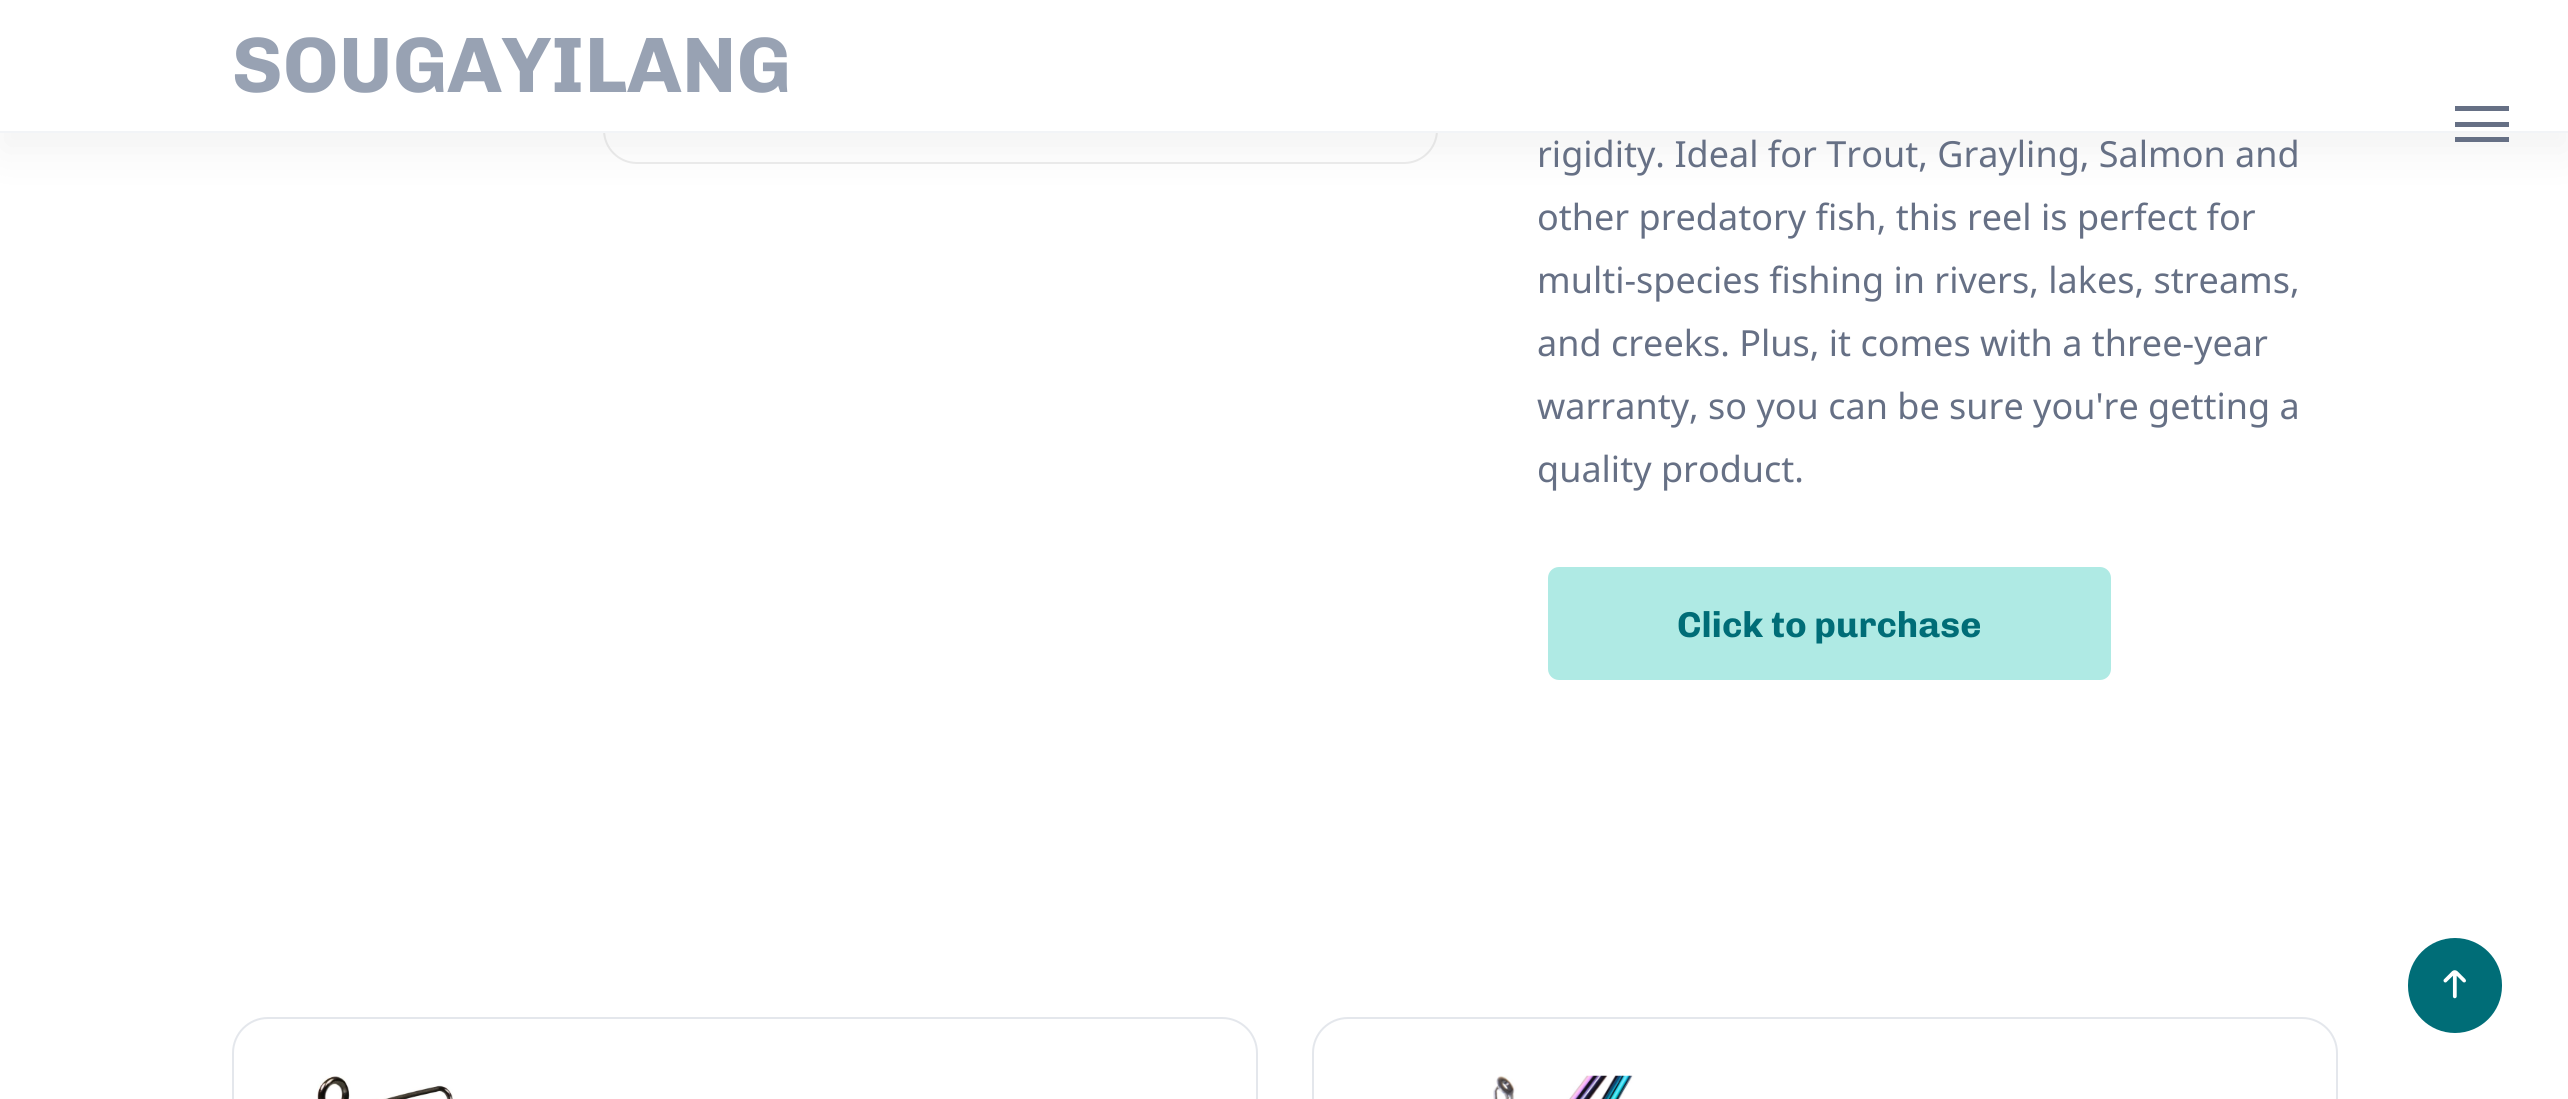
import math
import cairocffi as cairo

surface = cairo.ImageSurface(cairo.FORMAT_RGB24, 2568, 1099)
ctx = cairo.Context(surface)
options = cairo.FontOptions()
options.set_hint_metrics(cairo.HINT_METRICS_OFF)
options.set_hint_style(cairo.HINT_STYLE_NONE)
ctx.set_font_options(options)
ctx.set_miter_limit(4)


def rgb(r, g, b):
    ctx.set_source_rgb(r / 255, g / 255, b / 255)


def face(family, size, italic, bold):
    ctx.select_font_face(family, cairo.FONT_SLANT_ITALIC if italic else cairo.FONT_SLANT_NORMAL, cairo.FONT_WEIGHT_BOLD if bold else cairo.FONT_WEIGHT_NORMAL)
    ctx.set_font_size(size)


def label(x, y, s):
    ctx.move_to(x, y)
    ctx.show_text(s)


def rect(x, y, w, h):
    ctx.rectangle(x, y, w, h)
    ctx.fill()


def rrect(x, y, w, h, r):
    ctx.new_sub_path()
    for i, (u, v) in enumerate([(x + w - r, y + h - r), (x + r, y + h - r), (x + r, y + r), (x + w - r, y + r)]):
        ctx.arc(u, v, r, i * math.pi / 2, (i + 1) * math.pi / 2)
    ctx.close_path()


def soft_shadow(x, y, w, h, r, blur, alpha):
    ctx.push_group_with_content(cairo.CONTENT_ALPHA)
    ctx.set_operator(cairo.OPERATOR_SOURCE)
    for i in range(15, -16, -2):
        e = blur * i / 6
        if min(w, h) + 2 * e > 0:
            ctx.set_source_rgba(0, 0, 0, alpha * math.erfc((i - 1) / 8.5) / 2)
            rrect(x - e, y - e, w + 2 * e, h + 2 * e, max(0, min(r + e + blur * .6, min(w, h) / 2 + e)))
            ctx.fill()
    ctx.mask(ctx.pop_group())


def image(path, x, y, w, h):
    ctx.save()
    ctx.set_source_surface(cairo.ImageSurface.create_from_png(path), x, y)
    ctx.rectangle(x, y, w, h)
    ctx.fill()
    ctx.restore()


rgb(255, 255, 255)
ctx.paint()
rrect(604, -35, 833, 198, 33)
rgb(236, 236, 236)
ctx.stroke()
rgb(0, 0, 0)
soft_shadow(0, 18, 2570, 133, 0, 22.5, 0.05)
rgb(255, 255, 255)
rect(0, 0, 2568, 131)
rgb(242, 244, 247)
rect(0, 131, 2568, 2)
face('Chivo Medium', 78.75, 0, 0)
rgb(152, 162, 179)
label(232, 92, 'SOUGAYILANG')
rgb(102, 112, 133)
rect(2455, 106, 54, 5)
rect(2455, 122, 54, 5)
rect(2455, 137, 54, 5)
face('Noto Sans', 36, 0, 0)
label(1537, 167, 'rigidity. Ideal for Trout, Grayling, Salmon and')
label(1537, 230, 'other predatory fish, this reel is perfect for')
label(1537, 293, 'multi-species fishing in rivers, lakes, streams,')
label(1537, 356, 'and creeks. Plus, it comes with a three-year')
label(1537, 419, 'warranty, so you can be sure you\'re getting a')
label(1537, 482, 'quality product.')
rgb(175, 234, 228)
rrect(1549, 568, 561, 111, 10)
ctx.fill_preserve()
ctx.stroke()
face('Chivo Medium', 36, 0, 0)
rgb(0, 109, 119)
label(1677, 637, 'Click to purchase')
rrect(233, 1018, 1024, 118, 35)
rgb(228, 231, 236)
ctx.stroke()
image('image0.png', 317, 1076, 136, 23)
rrect(1313, 1018, 1024, 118, 35)
ctx.stroke()
image('image1.png', 1493, 1075, 141, 24)
rgb(0, 109, 119)
rrect(2408, 938, 94, 95, 47)
ctx.fill()
image('image2.png', 2443, 970, 23, 29)
surface.write_to_png('render.png')
